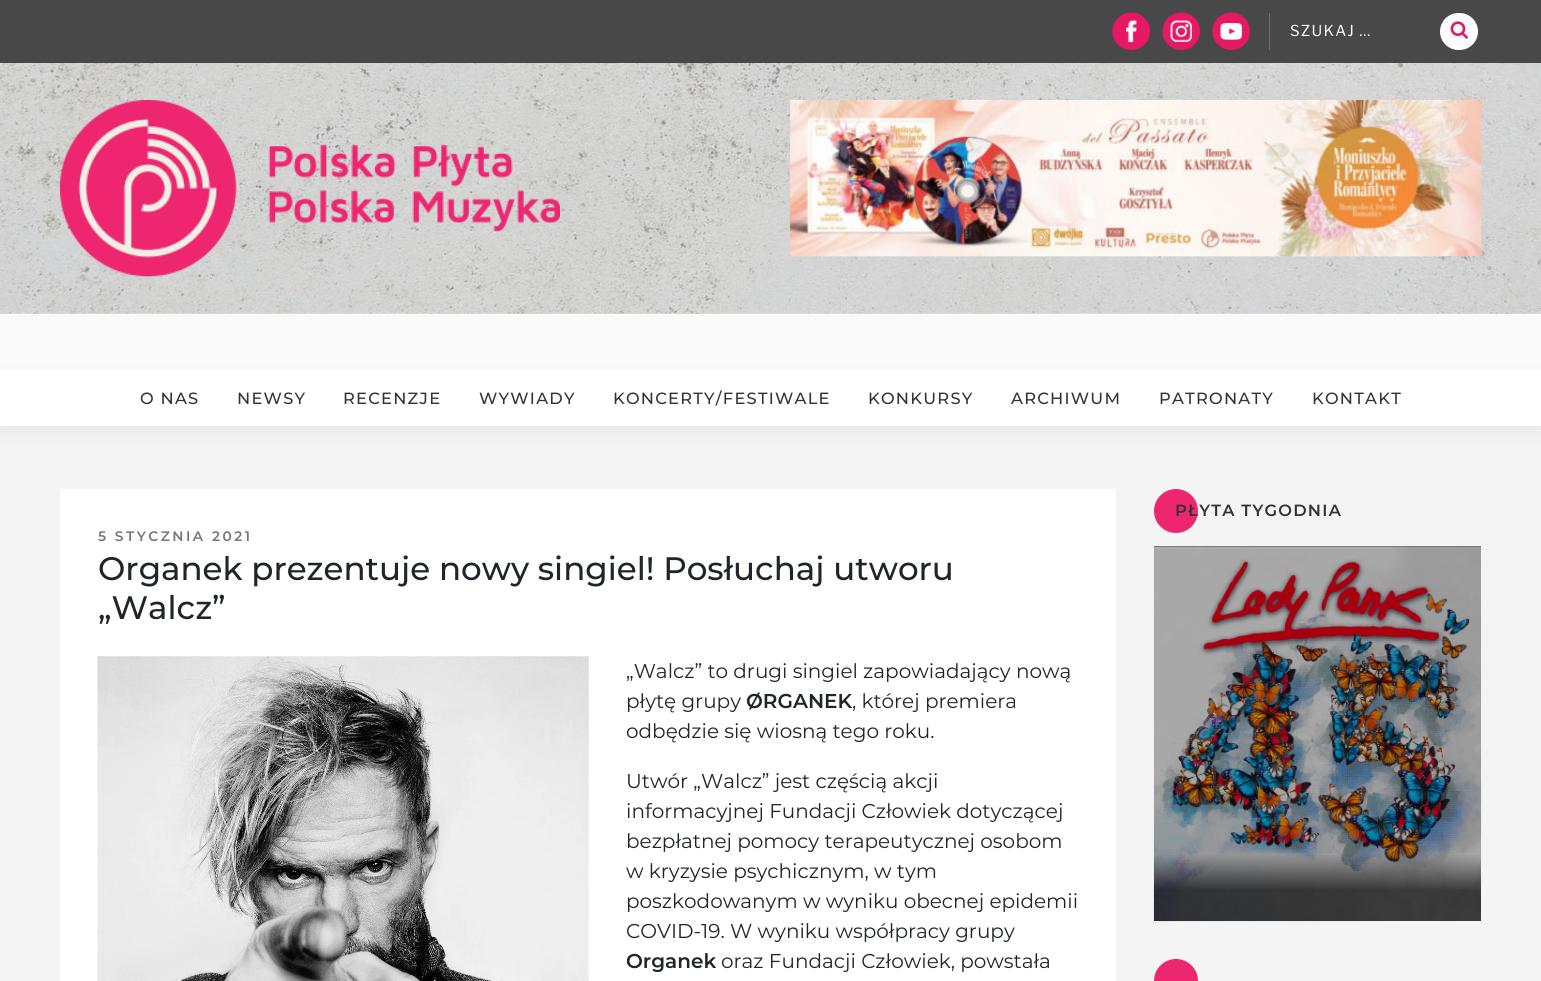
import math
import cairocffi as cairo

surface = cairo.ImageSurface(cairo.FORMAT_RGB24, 1541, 981)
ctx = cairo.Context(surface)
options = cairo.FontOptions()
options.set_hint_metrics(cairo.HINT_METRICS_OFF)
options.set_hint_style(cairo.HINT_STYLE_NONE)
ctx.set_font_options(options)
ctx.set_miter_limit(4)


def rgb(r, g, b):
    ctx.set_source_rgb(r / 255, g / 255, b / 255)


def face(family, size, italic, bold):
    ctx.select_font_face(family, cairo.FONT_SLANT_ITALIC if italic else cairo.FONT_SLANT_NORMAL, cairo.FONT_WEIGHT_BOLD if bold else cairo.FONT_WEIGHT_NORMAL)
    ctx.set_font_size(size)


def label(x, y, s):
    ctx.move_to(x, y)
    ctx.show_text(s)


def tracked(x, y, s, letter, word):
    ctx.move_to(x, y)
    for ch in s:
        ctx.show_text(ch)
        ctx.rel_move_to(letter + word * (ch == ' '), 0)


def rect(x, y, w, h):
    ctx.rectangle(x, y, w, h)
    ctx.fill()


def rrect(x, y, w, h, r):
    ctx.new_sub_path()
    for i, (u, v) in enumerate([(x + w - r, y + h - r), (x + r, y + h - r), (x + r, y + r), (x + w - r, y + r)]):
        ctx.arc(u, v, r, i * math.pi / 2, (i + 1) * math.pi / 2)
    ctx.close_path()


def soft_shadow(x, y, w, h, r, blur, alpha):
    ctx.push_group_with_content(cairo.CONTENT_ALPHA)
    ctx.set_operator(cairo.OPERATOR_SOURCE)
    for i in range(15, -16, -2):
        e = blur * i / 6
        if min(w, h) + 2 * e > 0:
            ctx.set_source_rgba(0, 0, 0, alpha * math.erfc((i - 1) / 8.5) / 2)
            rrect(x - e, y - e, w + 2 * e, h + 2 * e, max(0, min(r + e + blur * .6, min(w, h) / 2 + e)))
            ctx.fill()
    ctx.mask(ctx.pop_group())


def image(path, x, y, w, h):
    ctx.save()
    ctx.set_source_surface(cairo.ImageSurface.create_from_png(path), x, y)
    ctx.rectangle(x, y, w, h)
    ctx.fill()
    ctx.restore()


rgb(250, 250, 250)
ctx.paint()
image('image0.png', 0, 63, 1541, 251)
rgb(72, 72, 72)
rect(0, 0, 1541, 63)
image('image1.png', 1112, 12, 38, 38)
image('image2.png', 1162, 12, 38, 38)
image('image3.png', 1212, 12, 38, 38)
rgb(109, 109, 109)
rect(1269, 13, 1, 37)
face('Libre Franklin Thin', 15, 0, 0)
rgb(255, 255, 255)
tracked(1290, 36, 'SZUKAJ …', 1.25, 0)
rrect(1440, 13, 38, 37, 18.5)
ctx.fill()
image('image4.png', 1450, 21, 18, 18)
image('image5.png', 60, 100, 500, 177)
image('image6.png', 789, 100, 693, 157)
rgb(244, 244, 244)
rect(0, 426, 1541, 555)
rgb(0, 0, 0)
soft_shadow(0, 376, 1541, 57, 0, 9.5, 0.05)
rgb(255, 255, 255)
rect(0, 370, 1541, 56)
face('Montserrat Medium', 16.25, 0, 0)
rgb(51, 51, 51)
tracked(140, 404, 'O NAS', 1.25, 0)
tracked(237, 404, 'NEWSY', 1.25, 0)
tracked(343, 404, 'RECENZJE', 1.25, 0)
tracked(479, 404, 'WYWIADY', 1.25, 0)
tracked(613, 404, 'KONCERTY/FESTIWALE', 1.25, 0)
tracked(868, 404, 'KONKURSY', 1.25, 0)
tracked(1011, 404, 'ARCHIWUM', 1.25, 0)
tracked(1159, 404, 'PATRONATY', 1.25, 0)
tracked(1312, 404, 'KONTAKT', 1.25, 0)
rgb(238, 38, 111)
ctx.new_path()
ctx.arc(1176, 511, 22, 0, 2 * math.pi)
ctx.fill()
face('Montserrat SemiBold', 16.25, 0, 0)
rgb(51, 51, 51)
tracked(1175, 516, 'PŁYTA TYGODNIA', 1.25, 0)
rgb(0, 0, 0)
rect(1154, 546, 327, 375)
image('image7.png', 1153, 546, 329, 376)
gradient = cairo.LinearGradient(1318, 854, 1318, 921)
gradient.add_color_stop_rgba(0, 0, 0, 0, 0)
gradient.add_color_stop_rgba(0.54, 0, 0, 0, 0.65)
ctx.set_source(gradient)
rect(1154, 855, 327, 66)
rgb(238, 38, 111)
ctx.arc(1176, 981, 22, 0, 2 * math.pi)
ctx.fill()
rgb(255, 255, 255)
rect(60, 489, 1056, 492)
face('Montserrat SemiBold', 13.75, 0, 0)
rgb(118, 118, 118)
tracked(98, 541, '5 STYCZNIA 2021', 2.5, 0)
face('Montserrat Medium', 32.5, 0, 0)
rgb(33, 37, 41)
label(98, 580, 'Organek prezentuje nowy singiel! Posłuchaj utworu')
label(98, 619, '„Walcz”')
image('image8.png', 97, 656, 492, 325)
face('Montserrat', 20, 0, 0)
label(626, 678, '„Walcz” to drugi singiel zapowiadający nową')
label(626, 708, 'płytę grupy')
face('Montserrat SemiBold', 20, 0, 0)
label(746, 708, 'ØRGANEK')
face('Montserrat', 20, 0, 0)
label(852, 708, ', której premiera')
label(626, 738, 'odbędzie się wiosną tego roku.')
label(626, 788, 'Utwór „Walcz” jest częścią akcji')
label(626, 818, 'informacyjnej Fundacji Człowiek dotyczącej')
label(626, 848, 'bezpłatnej pomocy terapeutycznej osobom')
label(626, 878, 'w kryzysie psychicznym, w tym')
label(626, 908, 'poszkodowanym w wyniku obecnej epidemii')
label(626, 938, 'COVID-19. W wyniku współpracy grupy')
face('Montserrat SemiBold', 20, 0, 0)
label(626, 968, 'Organek')
face('Montserrat', 20, 0, 0)
label(721, 968, 'oraz Fundacji Człowiek, powstała')
surface.write_to_png('render.png')
